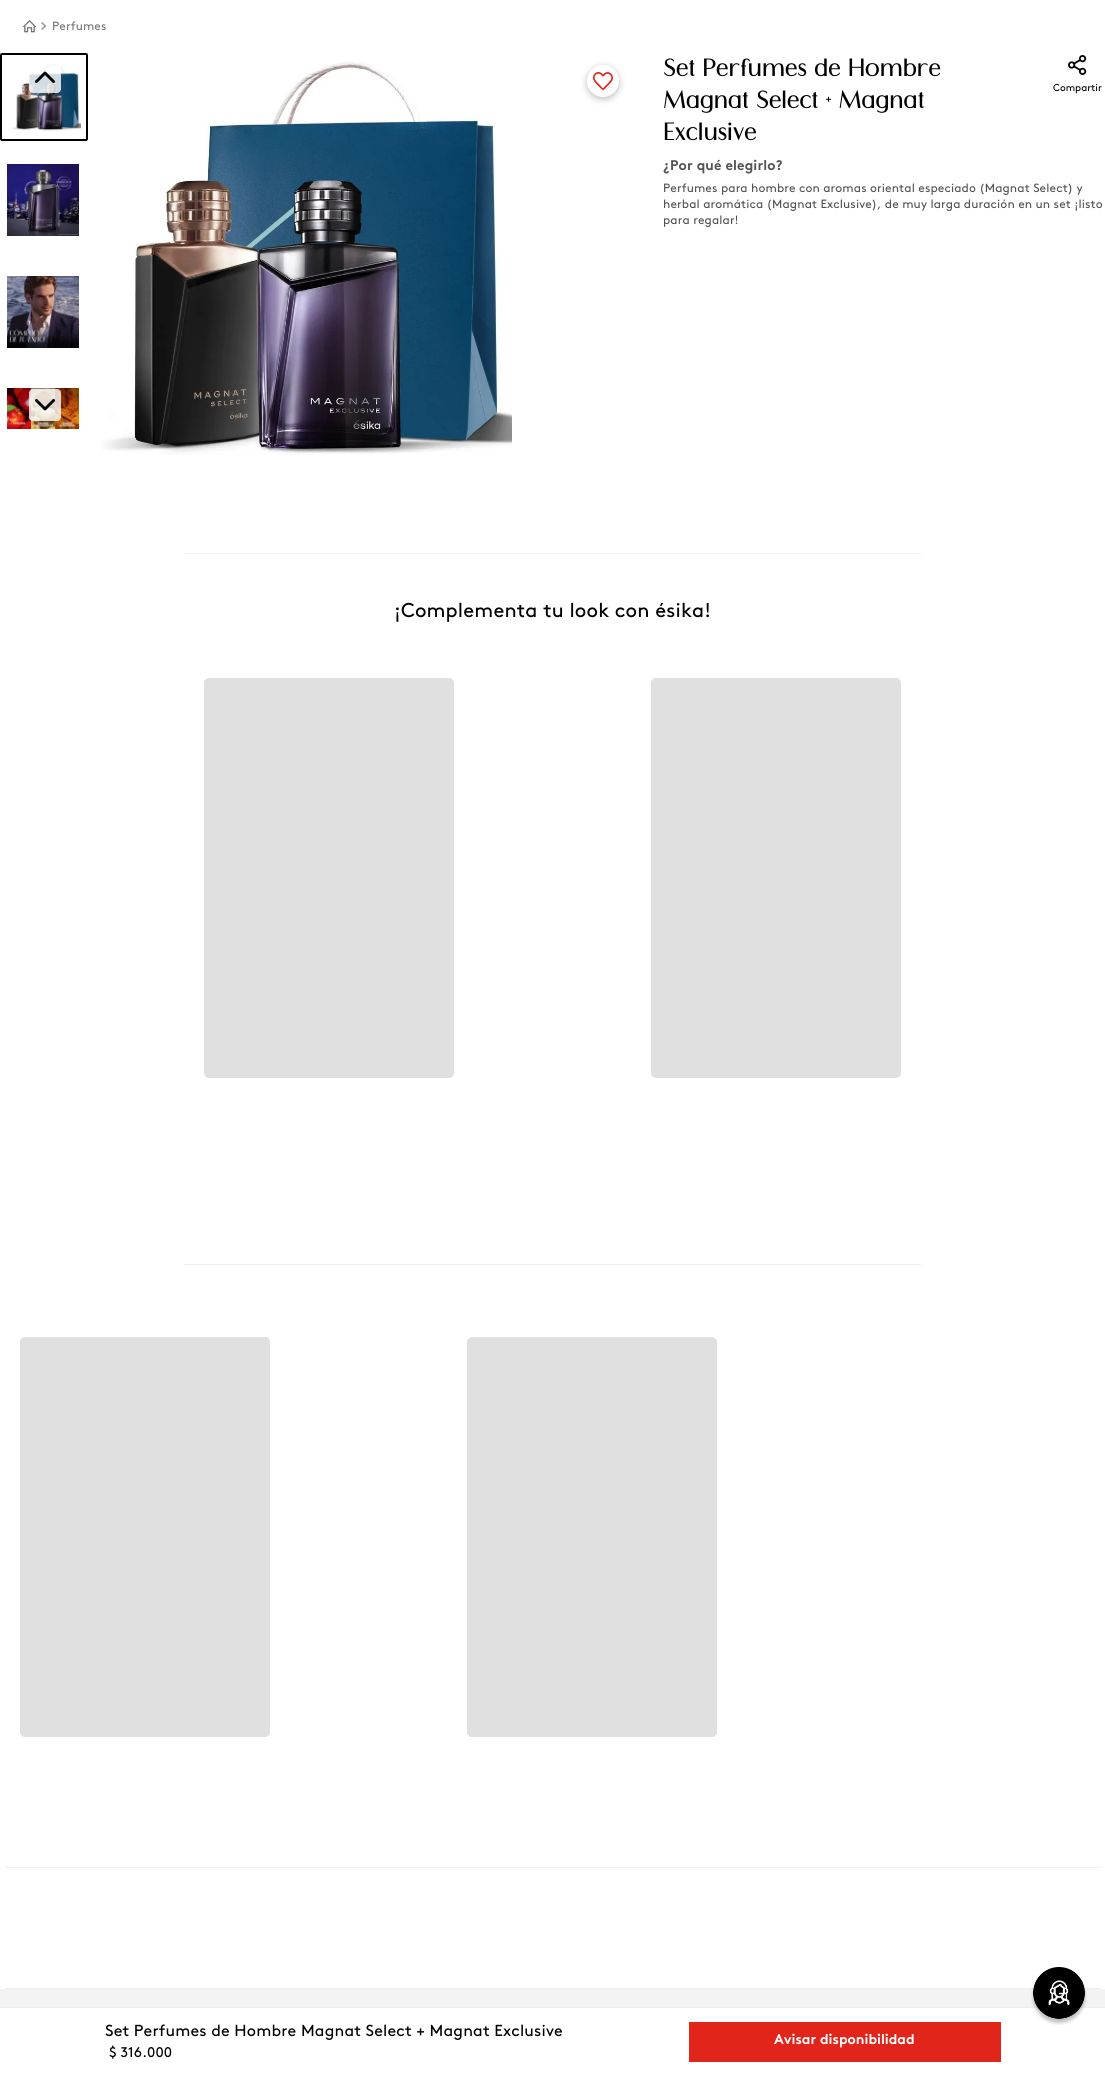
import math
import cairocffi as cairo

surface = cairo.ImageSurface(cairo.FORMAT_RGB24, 1105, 2075)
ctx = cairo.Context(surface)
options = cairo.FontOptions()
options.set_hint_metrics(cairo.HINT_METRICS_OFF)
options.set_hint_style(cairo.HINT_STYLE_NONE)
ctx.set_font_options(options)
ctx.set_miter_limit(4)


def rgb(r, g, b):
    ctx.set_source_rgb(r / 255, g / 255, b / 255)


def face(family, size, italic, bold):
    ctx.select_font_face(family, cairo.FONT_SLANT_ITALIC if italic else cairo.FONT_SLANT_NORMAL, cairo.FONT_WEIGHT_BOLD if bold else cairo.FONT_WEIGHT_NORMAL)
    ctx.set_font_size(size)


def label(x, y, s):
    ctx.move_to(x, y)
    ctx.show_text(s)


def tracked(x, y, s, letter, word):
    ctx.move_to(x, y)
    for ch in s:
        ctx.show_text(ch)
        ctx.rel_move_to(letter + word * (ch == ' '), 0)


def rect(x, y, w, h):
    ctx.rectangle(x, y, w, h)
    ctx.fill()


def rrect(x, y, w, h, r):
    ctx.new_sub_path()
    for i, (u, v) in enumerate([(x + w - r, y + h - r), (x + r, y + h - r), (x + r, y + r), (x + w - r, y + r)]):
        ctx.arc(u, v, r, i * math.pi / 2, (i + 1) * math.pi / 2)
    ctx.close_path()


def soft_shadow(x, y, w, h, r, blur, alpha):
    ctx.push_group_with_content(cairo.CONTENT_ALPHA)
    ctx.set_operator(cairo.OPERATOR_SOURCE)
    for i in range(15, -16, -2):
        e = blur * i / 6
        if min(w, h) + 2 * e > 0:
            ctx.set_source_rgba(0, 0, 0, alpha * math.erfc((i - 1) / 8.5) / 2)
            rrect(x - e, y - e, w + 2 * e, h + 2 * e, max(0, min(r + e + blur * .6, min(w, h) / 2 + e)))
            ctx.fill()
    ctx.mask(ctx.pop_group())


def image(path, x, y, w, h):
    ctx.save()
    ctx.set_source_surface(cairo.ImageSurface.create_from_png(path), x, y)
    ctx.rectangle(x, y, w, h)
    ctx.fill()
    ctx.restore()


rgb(255, 255, 255)
ctx.paint()
image('image0.png', 22, 20, 15, 13)
image('image1.png', 41, 22, 6, 8)
face('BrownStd', 12, 0, 0)
rgb(119, 118, 118)
tracked(52, 30, 'Perfumes', 0.1, 0)
rrect(1, 54, 86, 86, 1)
rgb(0, 0, 0)
ctx.stroke()
image('image2.png', 11, 63, 70, 68)
image('image3.png', 7, 164, 72, 72)
image('image4.png', 7, 276, 72, 72)
image('image5.png', 7, 388, 72, 41)
ctx.set_source_rgba(1, 1, 1, 0.8)
ctx.new_path()
ctx.move_to(57, 93)
ctx.line_to(33, 93)
ctx.curve_to(31, 93, 29, 91, 29, 89)
ctx.line_to(29, 65)
ctx.curve_to(29, 63, 31, 61, 33, 61)
ctx.line_to(57, 61)
ctx.curve_to(59, 61, 61, 63, 61, 65)
ctx.line_to(61, 89)
ctx.curve_to(61, 91, 59, 93, 57, 93)
ctx.close_path()
ctx.fill()
image('image6.png', 35, 71, 20, 12)
rrect(29, 389, 32, 32, 4)
ctx.fill()
image('image7.png', 35, 399, 20, 12)
image('image8.png', 101, 61, 411, 394)
rgb(0, 0, 0)
soft_shadow(587, 67, 32, 32, 16, 3.5, 0.25)
rgb(255, 255, 255)
ctx.arc(603, 81, 16, 0, 2 * math.pi)
ctx.fill()
image('image9.png', 593, 72, 20, 18)
face('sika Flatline', 24, 0, 1)
rgb(0, 0, 0)
tracked(663, 76, 'Set Perfumes de Hombre', 0.15, 0)
tracked(663, 108, 'Magnat Select + Magnat', 0.15, 0)
tracked(663, 140, 'Exclusive', 0.15, 0)
image('image10.png', 1068, 55, 19, 20)
face('BrownStd', 10, 0, 0)
label(1053, 91, 'Compartir')
face('BrownStd', 14, 0, 1)
rgb(84, 83, 83)
tracked(663, 170, '¿Por qué elegirlo?', 0.1, 0)
face('BrownStd', 12, 0, 0)
tracked(663, 192, 'Perfumes para hombre con aromas oriental especiado (Magnat Select) y', 0.1, 0)
tracked(663, 208, 'herbal aromática (Magnat Exclusive), de muy larga duración en un set ¡listo', 0.1, 0)
tracked(663, 224, 'para regalar!', 0.1, 0)
rgb(239, 239, 239)
rect(184, 553, 737, 1)
rect(184, 1264, 737, 1)
face('BrownStd', 20, 0, 0)
rgb(0, 0, 0)
tracked(394, 617, '¡Complementa tu look con ésika!', 0.15, 0)
gradient = cairo.LinearGradient(204, 878, 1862, 878)
gradient.add_color_stop_rgba(0, 0.878, 0.878, 0.878, 1)
gradient.add_color_stop_rgba(0.5, 0.878, 0.878, 0.878, 1)
gradient.add_color_stop_rgba(0.6, 0.91, 0.91, 0.91, 1)
gradient.add_color_stop_rgba(0.65, 0.878, 0.878, 0.878, 1)
gradient.add_color_stop_rgba(1, 0.878, 0.878, 0.878, 1)
ctx.set_source(gradient)
rrect(204, 678, 250, 400, 5)
ctx.fill()
rrect(651, 678, 250, 400, 5)
ctx.fill()
gradient = cairo.LinearGradient(20, 1537, 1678, 1537)
gradient.add_color_stop_rgba(0, 0.878, 0.878, 0.878, 1)
gradient.add_color_stop_rgba(0.5, 0.878, 0.878, 0.878, 1)
gradient.add_color_stop_rgba(0.6, 0.91, 0.91, 0.91, 1)
gradient.add_color_stop_rgba(0.65, 0.878, 0.878, 0.878, 1)
gradient.add_color_stop_rgba(1, 0.878, 0.878, 0.878, 1)
ctx.set_source(gradient)
rrect(20, 1337, 250, 400, 5)
ctx.fill()
rrect(467, 1337, 250, 400, 5)
ctx.fill()
rgb(239, 239, 239)
rect(5, 1867, 1096, 1)
rect(5, 1988, 1096, 1)
rgb(243, 243, 243)
rect(0, 1989, 1105, 18)
rgb(239, 239, 239)
rect(0, 2007, 1105, 1)
image('image11.png', 1031, 1967, 56, 58)
face('BrownStd', 16, 0, 0)
rgb(0, 0, 0)
tracked(105, 2036, 'Set Perfumes de Hombre Magnat Select + Magnat Exclusive', 0.15, 0)
face('BrownStd', 14, 0, 0)
tracked(109, 2057, '$ 316.000', 0.1, 0)
rgb(225, 37, 27)
rect(689, 2022, 312, 40)
face('BrownStd', 14, 0, 1)
rgb(255, 255, 255)
label(774, 2044, 'Avisar disponibilidad')
surface.write_to_png('render.png')
